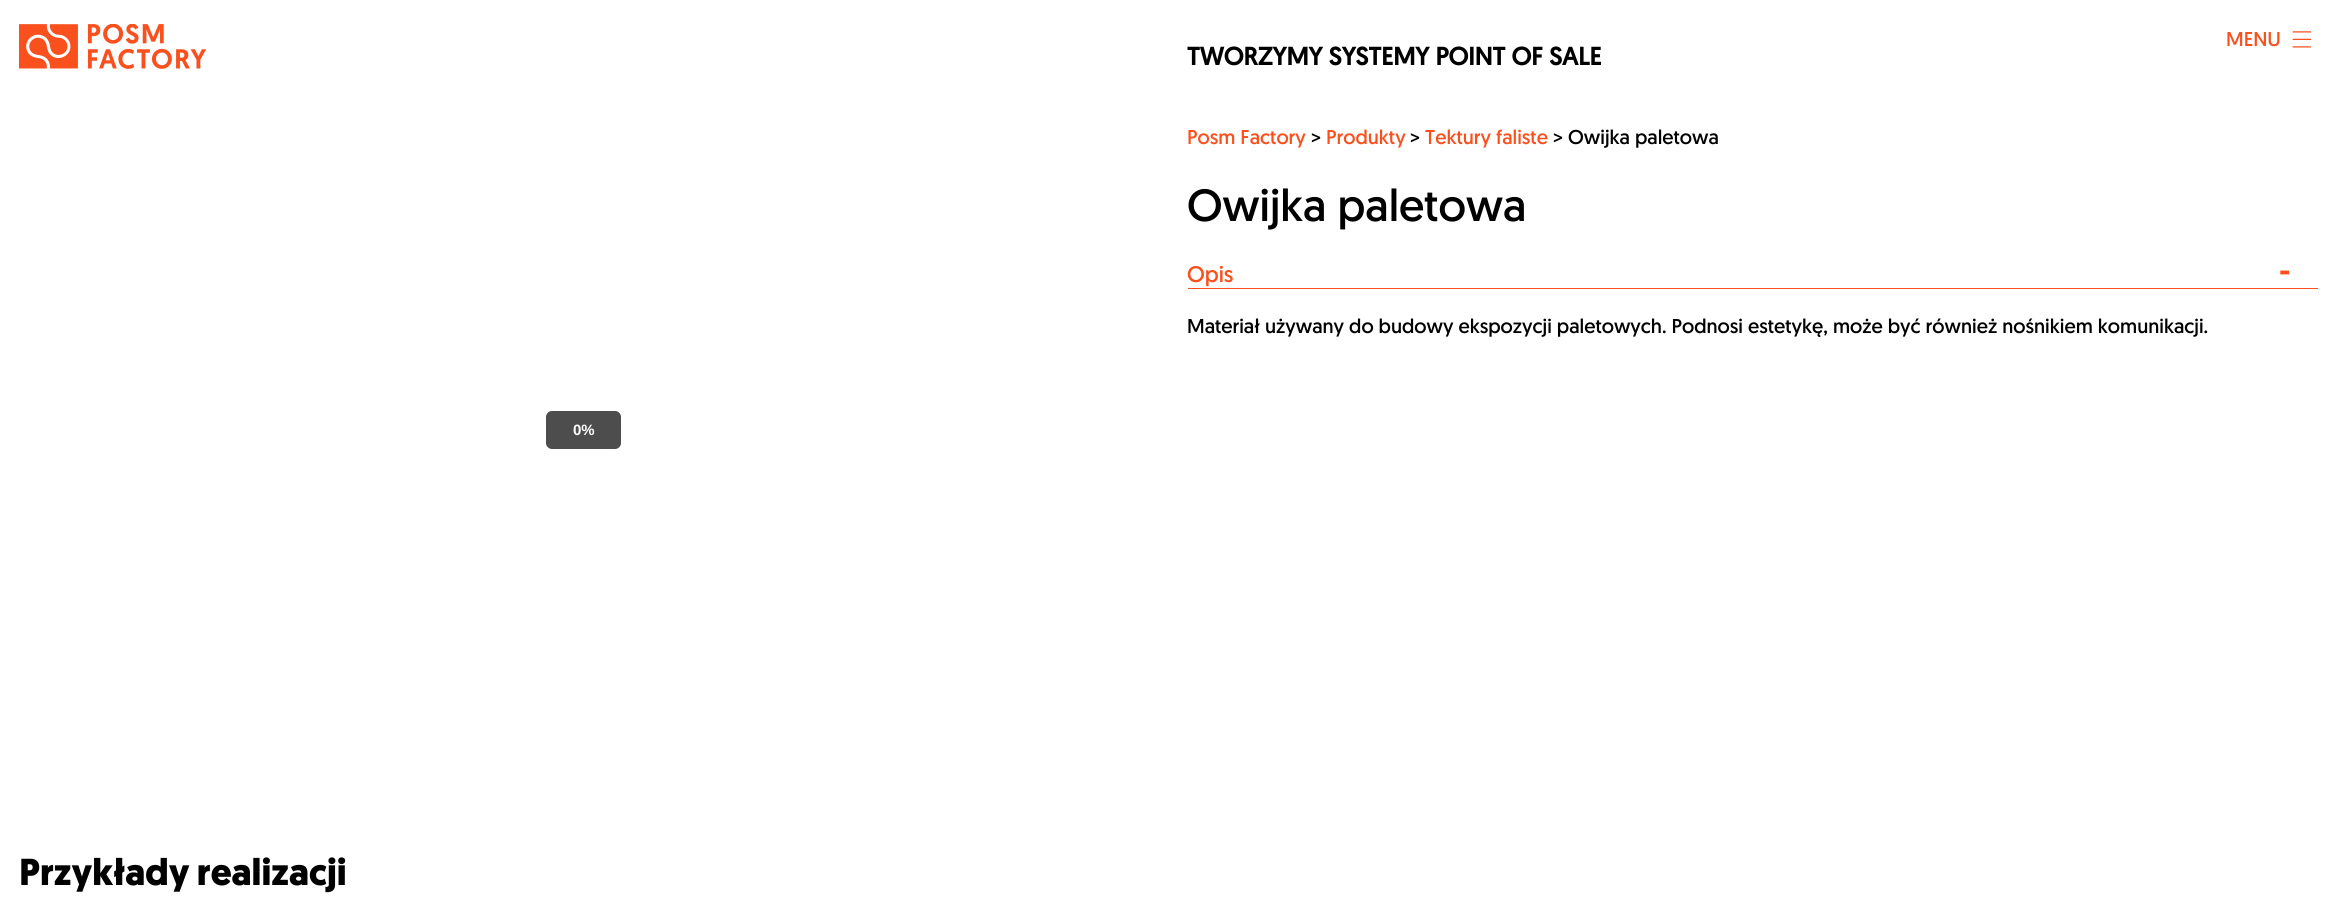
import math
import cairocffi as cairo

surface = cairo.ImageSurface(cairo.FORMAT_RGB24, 2336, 922)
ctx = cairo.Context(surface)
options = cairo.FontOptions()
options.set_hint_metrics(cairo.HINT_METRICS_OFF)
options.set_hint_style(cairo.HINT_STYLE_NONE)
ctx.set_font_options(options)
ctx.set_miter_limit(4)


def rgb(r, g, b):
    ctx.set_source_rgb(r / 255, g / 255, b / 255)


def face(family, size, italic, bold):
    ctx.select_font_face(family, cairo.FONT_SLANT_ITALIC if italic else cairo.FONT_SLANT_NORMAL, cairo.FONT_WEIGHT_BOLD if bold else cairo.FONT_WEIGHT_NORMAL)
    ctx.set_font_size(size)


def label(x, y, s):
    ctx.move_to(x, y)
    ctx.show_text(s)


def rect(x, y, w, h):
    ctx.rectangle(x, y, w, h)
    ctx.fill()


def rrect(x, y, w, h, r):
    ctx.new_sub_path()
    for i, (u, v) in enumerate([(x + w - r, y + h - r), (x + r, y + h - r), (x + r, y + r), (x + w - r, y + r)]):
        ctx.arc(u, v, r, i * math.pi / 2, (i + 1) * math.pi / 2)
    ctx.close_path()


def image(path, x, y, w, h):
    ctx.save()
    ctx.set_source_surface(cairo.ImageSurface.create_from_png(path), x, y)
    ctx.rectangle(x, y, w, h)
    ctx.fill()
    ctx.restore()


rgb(255, 255, 255)
ctx.paint()
image('image0.png', 19, 24, 187, 45)
face('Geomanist', 20, 0, 0)
rgb(250, 80, 30)
label(2226, 46, 'MENU')
image('image1.png', 2292, 31, 20, 17)
face('Geomanist', 25, 0, 1)
rgb(0, 0, 0)
label(1187, 65, 'TWORZYMY SYSTEMY POINT OF SALE')
face('Geomanist', 20, 0, 0)
rgb(250, 80, 30)
label(1187, 144, 'Posm Factory')
rgb(0, 0, 0)
label(1311, 144, '>')
rgb(250, 80, 30)
label(1326, 144, 'Produkty')
rgb(0, 0, 0)
label(1410, 144, '>')
rgb(250, 80, 30)
label(1425, 144, 'Tektury faliste')
rgb(0, 0, 0)
label(1553, 144, '> Owijka paletowa')
face('Geomanist', 45, 0, 0)
label(1187, 221, 'Owijka paletowa')
face('Geomanist', 22.5, 0, 0)
rgb(250, 80, 30)
label(1187, 282, 'Opis')
face('Geomanist', 30, 0, 1)
label(2279, 282, '-')
rect(1188, 288, 1130, 1)
face('Geomanist', 20, 0, 0)
rgb(0, 0, 0)
label(1187, 333, 'Materiał używany do budowy ekspozycji paletowych. Podnosi estetykę, może być również nośnikiem komunikacji.')
rgb(77, 77, 77)
rrect(546, 411, 75, 38, 6)
ctx.fill()
face('Liberation Sans', 15, 0, 1)
rgb(255, 255, 255)
label(573, 435, '0%')
face('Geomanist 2', 37.5, 0, 1)
rgb(0, 0, 0)
label(19, 885, 'Przykłady realizacji')
surface.write_to_png('render.png')
